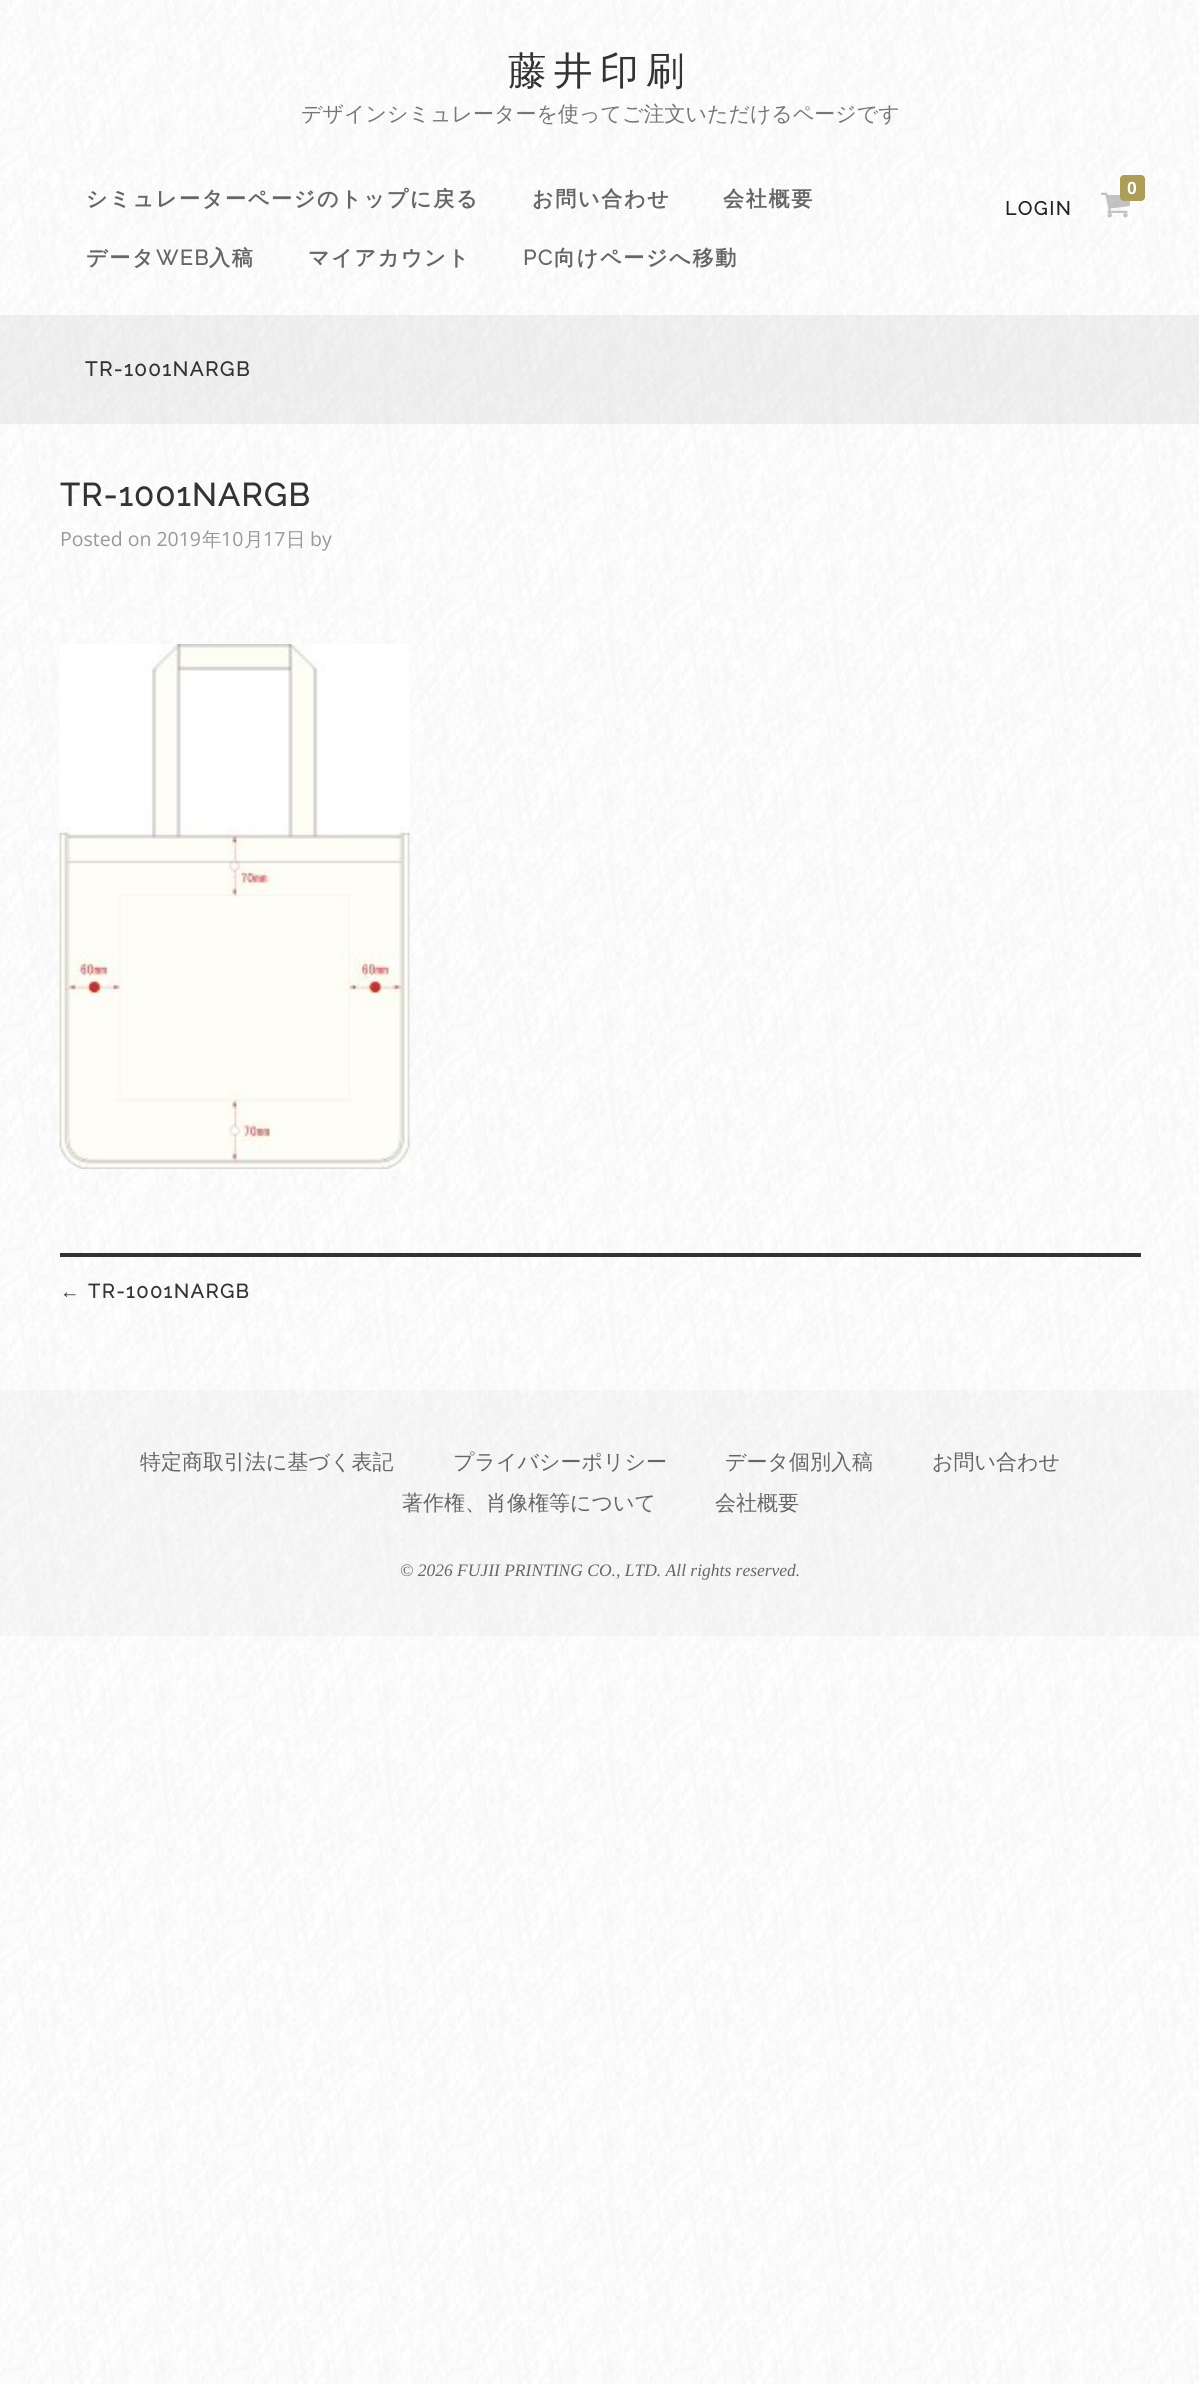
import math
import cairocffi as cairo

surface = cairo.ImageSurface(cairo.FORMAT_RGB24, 1199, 2384)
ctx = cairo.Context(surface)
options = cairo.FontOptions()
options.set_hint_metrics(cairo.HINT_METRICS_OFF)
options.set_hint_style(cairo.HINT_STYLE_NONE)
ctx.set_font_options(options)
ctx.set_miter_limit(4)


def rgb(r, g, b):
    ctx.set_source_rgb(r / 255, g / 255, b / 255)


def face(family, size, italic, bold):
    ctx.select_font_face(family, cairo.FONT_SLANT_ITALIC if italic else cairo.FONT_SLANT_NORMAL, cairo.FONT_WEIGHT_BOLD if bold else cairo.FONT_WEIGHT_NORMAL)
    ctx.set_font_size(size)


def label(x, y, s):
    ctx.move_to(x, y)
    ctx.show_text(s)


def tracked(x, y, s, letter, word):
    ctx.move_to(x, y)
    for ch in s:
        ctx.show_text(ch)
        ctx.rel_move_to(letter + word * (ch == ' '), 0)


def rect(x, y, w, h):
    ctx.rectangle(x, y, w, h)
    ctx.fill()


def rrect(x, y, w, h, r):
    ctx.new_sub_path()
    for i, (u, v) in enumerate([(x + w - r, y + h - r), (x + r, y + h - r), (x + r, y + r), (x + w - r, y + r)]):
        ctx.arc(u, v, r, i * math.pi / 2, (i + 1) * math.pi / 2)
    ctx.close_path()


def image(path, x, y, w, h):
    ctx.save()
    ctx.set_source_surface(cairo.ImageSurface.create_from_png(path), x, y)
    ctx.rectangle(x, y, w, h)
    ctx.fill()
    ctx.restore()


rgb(255, 255, 255)
ctx.paint()
image('image0.png', 0, 0, 1199, 2384)
face('WenQuanYi Zen Hei Medium', 38.5, 0, 0)
rgb(51, 51, 51)
tracked(508, 84, '藤井印刷', 7.5, 0)
face('WenQuanYi Zen Hei Medium', 21, 0, 0)
rgb(119, 119, 119)
label(301, 121, 'デザインシミュレーターを使ってご注文いただけるページです')
face('WenQuanYi Zen Hei', 21, 0, 1)
rgb(102, 102, 102)
tracked(86, 206, 'シミュレーターページのトップに戻る', 1.75, 0)
tracked(532, 206, 'お問い合わせ', 1.75, 0)
tracked(723, 206, '会社概要', 1.75, 0)
tracked(86, 265, 'データ', 1.75, 0)
face('Raleway', 21, 0, 1)
tracked(156, 265, 'WEB', 1.75, 0)
face('WenQuanYi Zen Hei', 21, 0, 1)
tracked(209, 265, '入稿', 1.75, 0)
tracked(308, 265, 'マイアカウント', 1.75, 0)
face('Raleway', 21, 0, 1)
tracked(523, 265, 'PC', 1.75, 0)
face('WenQuanYi Zen Hei', 21, 0, 1)
tracked(554, 265, '向けページへ移動', 1.75, 0)
image('image1.png', 1100, 192, 30, 26)
rgb(173, 157, 90)
rrect(1120, 175, 25, 26, 4)
ctx.fill()
face('Liberation Sans', 17.5, 0, 1)
rgb(255, 255, 255)
label(1127, 194, '0')
face('Raleway', 19, 0, 1)
rgb(34, 34, 34)
tracked(1005, 215, 'LOGIN', 1.75, 0)
ctx.set_source_rgba(0.471, 0.471, 0.471, 0.1)
rect(0, 315, 1199, 109)
face('Raleway', 20, 0, 1)
rgb(51, 51, 51)
tracked(85, 376, 'TR-1001NARGB', 1.75, 0)
face('Raleway', 31.75, 0, 1)
tracked(60, 506, 'TR-1001NARGB', 1.75, 0)
face('Open Sans', 19.5, 0, 0)
rgb(153, 153, 153)
label(60, 546, 'Posted on 2019')
face('WenQuanYi Zen Hei Medium', 19.5, 0, 0)
label(202, 546, '年')
face('Open Sans', 19.5, 0, 0)
label(221, 546, '10')
face('WenQuanYi Zen Hei Medium', 19.5, 0, 0)
label(244, 546, '月')
face('Open Sans', 19.5, 0, 0)
label(263, 546, '17')
face('WenQuanYi Zen Hei Medium', 19.5, 0, 0)
label(286, 546, '日')
face('Open Sans', 19.5, 0, 0)
label(310, 546, 'by')
image('image2.png', 59, 644, 351, 525)
rgb(51, 51, 51)
rect(60, 1253, 1081, 4)
face('Liberation Sans', 19.5, 0, 1)
tracked(60, 1298, '←', 1.75, 0)
face('Raleway', 19.5, 0, 1)
tracked(88, 1298, 'TR-1001NARGB', 1.75, 0)
ctx.set_source_rgba(0.745, 0.745, 0.745, 0.1)
rect(0, 1390, 1199, 246)
face('WenQuanYi Zen Hei Medium', 21, 0, 0)
rgb(102, 102, 102)
label(140, 1469, '特定商取引法に基づく表記')
label(453, 1469, 'プライバシーポリシー')
label(725, 1469, 'データ個別入稿')
label(932, 1469, 'お問い合わせ')
label(402, 1510, '著作権、肖像権等について')
label(715, 1510, '会社概要')
face('Liberation Serif', 17.5, 1, 0)
label(400, 1576, '© 2026 FUJII PRINTING CO., LTD. All rights reserved.')
surface.write_to_png('render.png')
